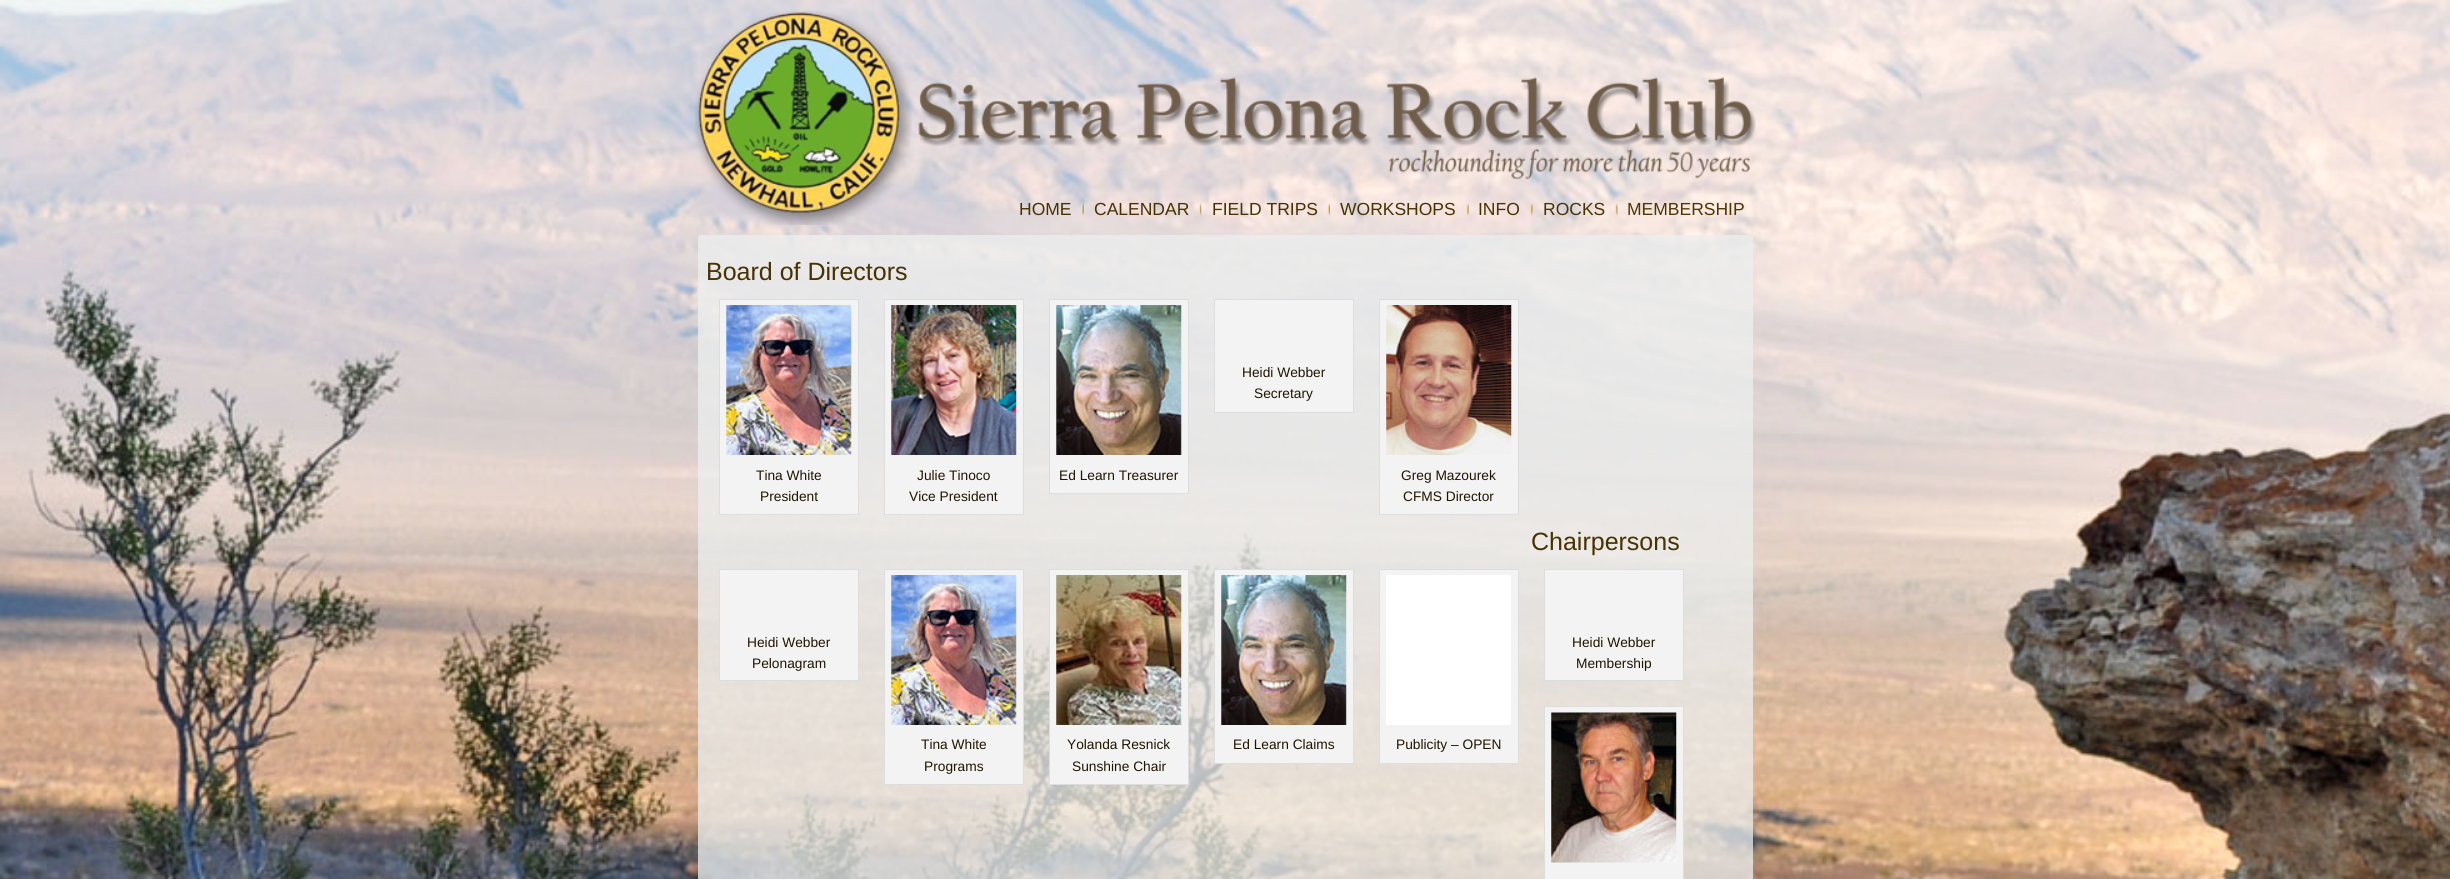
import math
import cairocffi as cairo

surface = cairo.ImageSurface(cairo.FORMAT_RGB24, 2450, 879)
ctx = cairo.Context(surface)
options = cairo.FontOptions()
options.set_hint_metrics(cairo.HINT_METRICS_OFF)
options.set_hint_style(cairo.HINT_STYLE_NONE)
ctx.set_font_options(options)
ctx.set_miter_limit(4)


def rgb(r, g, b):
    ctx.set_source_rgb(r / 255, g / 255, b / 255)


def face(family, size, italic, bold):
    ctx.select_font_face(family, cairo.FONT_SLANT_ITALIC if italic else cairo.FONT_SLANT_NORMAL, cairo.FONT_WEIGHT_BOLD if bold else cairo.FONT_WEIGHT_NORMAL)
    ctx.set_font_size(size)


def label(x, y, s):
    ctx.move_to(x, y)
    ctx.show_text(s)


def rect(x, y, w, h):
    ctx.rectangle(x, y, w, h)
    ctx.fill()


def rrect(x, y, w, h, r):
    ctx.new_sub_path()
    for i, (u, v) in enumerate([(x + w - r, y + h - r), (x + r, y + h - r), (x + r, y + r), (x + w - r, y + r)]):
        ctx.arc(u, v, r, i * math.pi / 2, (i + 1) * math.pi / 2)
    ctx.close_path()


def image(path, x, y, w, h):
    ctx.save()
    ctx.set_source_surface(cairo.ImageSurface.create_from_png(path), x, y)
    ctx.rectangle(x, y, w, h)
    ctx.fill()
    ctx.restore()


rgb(255, 255, 255)
ctx.paint()
image('image0.png', 0, 0, 2450, 879)
image('image1.png', 695, 10, 1061, 215)
face('Liberation Sans', 17.5, 0, 0)
rgb(71, 50, 0)
label(1019, 215, 'HOME')
image('image2.png', 1081, 203, 3, 12)
label(1094, 215, 'CALENDAR')
image('image3.png', 1198, 203, 4, 13)
label(1212, 215, 'FIELD TRIPS')
image('image4.png', 1327, 203, 3, 13)
label(1340, 215, 'WORKSHOPS')
image('image5.png', 1466, 203, 3, 12)
label(1478, 215, 'INFO')
image('image6.png', 1530, 203, 3, 13)
label(1543, 215, 'ROCKS')
image('image7.png', 1615, 203, 3, 13)
rgb(77, 54, 0)
label(1627, 215, 'MEMBERSHIP')
ctx.set_source_rgba(0.925, 0.937, 0.933, 0.75)
rrect(698, 235, 1055, 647, 2.5)
ctx.fill()
face('Liberation Sans', 25, 0, 0)
rgb(71, 50, 0)
label(706, 280, 'Board of Directors')
rgb(243, 243, 243)
ctx.rectangle(1214.5, 299.5, 139, 113)
ctx.fill_preserve()
rgb(221, 221, 221)
ctx.set_line_width(1)
ctx.stroke()
face('Liberation Sans', 13.75, 0, 0)
rgb(31, 21, 0)
label(1242, 377, 'Heidi Webber')
label(1254, 398, 'Secretary')
rgb(243, 243, 243)
ctx.rectangle(719.5, 299.5, 139, 215)
ctx.fill_preserve()
rgb(221, 221, 221)
ctx.stroke()
image('image8.png', 726, 305, 126, 150)
rgb(31, 21, 0)
label(756, 480, 'Tina White')
label(760, 501, 'President')
rgb(243, 243, 243)
ctx.rectangle(884.5, 299.5, 139, 215)
ctx.fill_preserve()
rgb(221, 221, 221)
ctx.stroke()
image('image9.png', 891, 305, 126, 150)
rgb(31, 21, 0)
label(917, 480, 'Julie Tinoco')
label(909, 501, 'Vice President')
rgb(243, 243, 243)
ctx.rectangle(1049.5, 299.5, 139, 194)
ctx.fill_preserve()
rgb(221, 221, 221)
ctx.stroke()
image('image10.png', 1056, 305, 126, 150)
rgb(31, 21, 0)
label(1059, 480, 'Ed Learn Treasurer')
rgb(243, 243, 243)
ctx.rectangle(1379.5, 299.5, 139, 215)
ctx.fill_preserve()
rgb(221, 221, 221)
ctx.stroke()
image('image11.png', 1386, 305, 126, 150)
rgb(31, 21, 0)
label(1401, 480, 'Greg Mazourek')
label(1403, 501, 'CFMS Director')
face('Liberation Sans', 25, 0, 0)
rgb(71, 50, 0)
label(1531, 550, 'Chairpersons')
rgb(243, 243, 243)
ctx.rectangle(719.5, 569.5, 139, 111)
ctx.fill_preserve()
rgb(221, 221, 221)
ctx.stroke()
face('Liberation Sans', 13.75, 0, 0)
rgb(31, 21, 0)
label(747, 647, 'Heidi Webber')
label(752, 668, 'Pelonagram')
rgb(243, 243, 243)
ctx.rectangle(1544.5, 569.5, 139, 111)
ctx.fill_preserve()
rgb(221, 221, 221)
ctx.stroke()
rgb(31, 21, 0)
label(1572, 647, 'Heidi Webber')
label(1576, 668, 'Membership')
rgb(243, 243, 243)
ctx.rectangle(884.5, 569.5, 139, 215)
ctx.fill_preserve()
rgb(221, 221, 221)
ctx.stroke()
image('image12.png', 891, 575, 126, 150)
rgb(31, 21, 0)
label(921, 749, 'Tina White')
label(924, 771, 'Programs')
rgb(243, 243, 243)
ctx.rectangle(1049.5, 569.5, 139, 215)
ctx.fill_preserve()
rgb(221, 221, 221)
ctx.stroke()
image('image13.png', 1056, 575, 126, 150)
rgb(31, 21, 0)
label(1067, 749, 'Yolanda Resnick')
label(1072, 771, 'Sunshine Chair')
rgb(243, 243, 243)
ctx.rectangle(1214.5, 569.5, 139, 194)
ctx.fill_preserve()
rgb(221, 221, 221)
ctx.stroke()
image('image14.png', 1221, 575, 126, 150)
rgb(31, 21, 0)
label(1233, 749, 'Ed Learn Claims')
rgb(243, 243, 243)
ctx.rectangle(1379.5, 569.5, 139, 194)
ctx.fill_preserve()
rgb(221, 221, 221)
ctx.stroke()
rgb(255, 255, 255)
rect(1386, 575, 125, 150)
rgb(31, 21, 0)
label(1396, 749, 'Publicity – OPEN')
rgb(243, 243, 243)
ctx.rectangle(1544.5, 706.5, 139, 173)
ctx.fill_preserve()
rgb(221, 221, 221)
ctx.stroke()
image('image15.png', 1551, 712, 126, 151)
surface.write_to_png('render.png')
